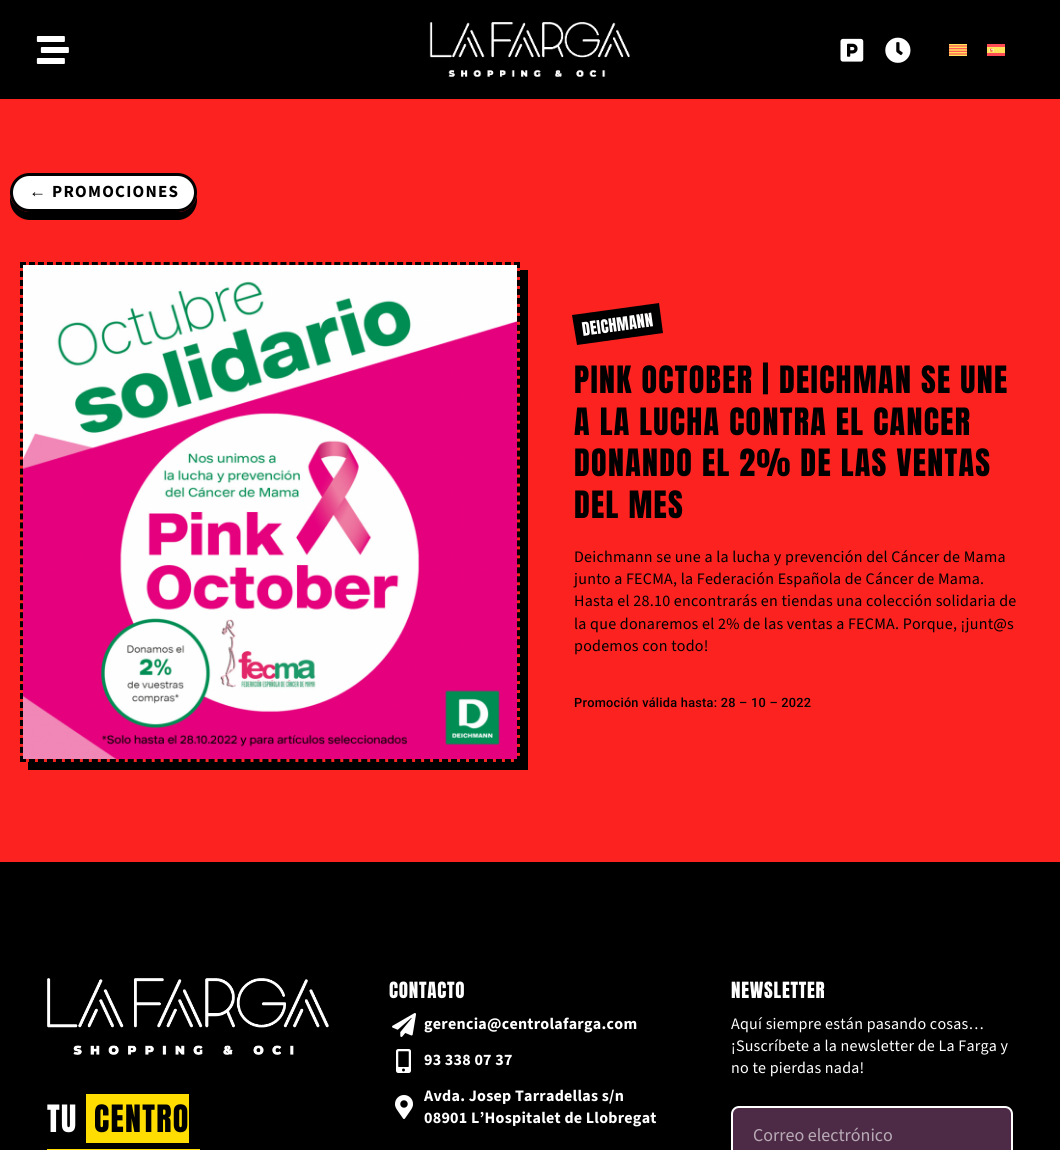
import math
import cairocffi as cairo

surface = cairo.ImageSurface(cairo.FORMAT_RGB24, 1060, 1150)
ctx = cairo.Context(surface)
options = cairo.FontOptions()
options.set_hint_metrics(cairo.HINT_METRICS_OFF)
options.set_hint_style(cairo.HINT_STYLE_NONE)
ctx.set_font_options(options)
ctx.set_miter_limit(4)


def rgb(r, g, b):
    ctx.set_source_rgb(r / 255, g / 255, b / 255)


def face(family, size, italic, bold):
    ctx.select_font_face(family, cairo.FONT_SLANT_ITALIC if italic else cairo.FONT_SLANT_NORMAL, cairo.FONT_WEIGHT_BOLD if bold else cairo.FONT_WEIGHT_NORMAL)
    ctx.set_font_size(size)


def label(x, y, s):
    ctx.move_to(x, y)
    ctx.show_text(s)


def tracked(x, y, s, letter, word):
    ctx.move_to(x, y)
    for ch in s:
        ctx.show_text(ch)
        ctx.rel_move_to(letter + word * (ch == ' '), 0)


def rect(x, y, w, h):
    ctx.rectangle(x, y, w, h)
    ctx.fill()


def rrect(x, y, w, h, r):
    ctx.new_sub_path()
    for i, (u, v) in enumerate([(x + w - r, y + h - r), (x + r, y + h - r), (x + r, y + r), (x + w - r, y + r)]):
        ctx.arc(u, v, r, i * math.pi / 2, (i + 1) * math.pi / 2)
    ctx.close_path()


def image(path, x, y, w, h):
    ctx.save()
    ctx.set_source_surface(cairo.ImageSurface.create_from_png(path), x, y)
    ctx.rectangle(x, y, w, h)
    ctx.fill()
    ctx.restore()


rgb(252, 34, 32)
ctx.paint()
rgb(0, 0, 0)
rect(0, 0, 1060, 99)
image('image0.png', 36, 36, 33, 28)
image('image1.png', 429, 22, 201, 55)
image('image2.png', 840, 38, 24, 24)
image('image3.png', 885, 37, 26, 26)
image('image4.png', 949, 44, 18, 12)
image('image5.png', 987, 44, 18, 12)
ctx.new_path()
ctx.move_to(10, 196)
ctx.line_to(10, 200)
ctx.curve_to(10, 211, 19, 220, 30, 220)
ctx.line_to(178, 220)
ctx.curve_to(188, 220, 197, 211, 197, 200)
ctx.line_to(197, 196)
ctx.curve_to(195, 205, 187, 212, 178, 212)
ctx.line_to(30, 212)
ctx.curve_to(20, 212, 12, 205, 10, 196)
ctx.close_path()
ctx.fill()
rgb(255, 255, 255)
rrect(11.5, 174.5, 184, 36, 18)
ctx.fill_preserve()
rgb(0, 0, 0)
ctx.set_line_width(3)
ctx.stroke()
face('Liberation Sans', 17, 0, 1)
tracked(29, 197, '←', 1.25, 0)
face('Source Sans 3', 17, 0, 1)
tracked(52, 197, 'PROMOCIONES', 1.25, 0)
ctx.new_path()
ctx.move_to(28, 762)
ctx.line_to(28, 770)
ctx.line_to(528, 770)
ctx.line_to(528, 270)
ctx.line_to(520, 270)
ctx.line_to(520, 762)
ctx.close_path()
ctx.fill()
ctx.new_path()
ctx.move_to(20, 263.5)
ctx.line_to(520, 263.5)
ctx.set_dash([6, 2.98])
ctx.stroke()
ctx.new_path()
ctx.move_to(518.5, 262)
ctx.line_to(518.5, 762)
ctx.stroke()
ctx.new_path()
ctx.move_to(20, 760.5)
ctx.line_to(520, 760.5)
ctx.stroke()
ctx.new_path()
ctx.move_to(21.5, 262)
ctx.line_to(21.5, 762)
ctx.stroke()
image('image6.png', 23, 265, 494, 494)
ctx.new_path()
ctx.move_to(572, 315)
ctx.line_to(659, 303)
ctx.line_to(663, 333)
ctx.line_to(577, 345)
ctx.close_path()
ctx.fill()
face('Anton', 16, 0, 0)
rgb(255, 255, 255)
ctx.save()
ctx.translate(583, 336)
ctx.rotate(-8 * math.pi / 180)
tracked(0, 0, 'DEICHMANN', 0.25, 0)
ctx.restore()
face('Anton', 32, 0, 0)
rgb(0, 0, 0)
tracked(574, 393, 'PINK OCTOBER | DEICHMAN SE UNE', 1.3, 0)
tracked(574, 435, 'A LA LUCHA CONTRA EL CANCER', 1.3, 0)
tracked(574, 476, 'DONANDO EL 2% DE LAS VENTAS', 1.3, 0)
tracked(574, 518, 'DEL MES', 1.3, 0)
face('Source Sans 3', 16, 0, 0)
tracked(574, 562, 'Deichmann se une a la lucha y prevención del Cáncer de Mama', 0.25, 0)
tracked(574, 584, 'junto a FECMA, la Federación Española de Cáncer de Mama.', 0.25, 0)
tracked(574, 606, 'Hasta el 28.10 encontrarás en tiendas una colección solidaria de', 0.25, 0)
tracked(574, 629, 'la que donaremos el 2% de las ventas a FECMA. Porque, ¡junt@s', 0.25, 0)
tracked(574, 651, 'podemos con todo!', 0.25, 0)
face('Roboto Medium', 12.75, 0, 0)
tracked(574, 707, 'Promoción válida hasta: 28 – 10 – 2022', 0.25, 0)
rect(0, 862, 1060, 288)
image('image7.png', 47, 978, 282, 77)
face('Anton', 32, 0, 0)
rgb(255, 255, 255)
tracked(47, 1132, 'TU', 1.3, 0)
rgb(255, 221, 0)
rect(86, 1094, 103, 49)
rgb(0, 0, 0)
tracked(94, 1132, 'CENTRO', 1.3, 0)
rgb(255, 221, 0)
rect(47, 1149, 153, 1)
face('Anton', 19, 0, 0)
rgb(255, 255, 255)
tracked(389, 998, 'CONTACTO', 0.75, 0)
image('image8.png', 392, 1013, 24, 24)
face('Source Sans 3', 16, 0, 1)
tracked(424, 1029, 'gerencia@centrolafarga.com', 0.25, 0)
image('image9.png', 396, 1049, 15, 24)
tracked(424, 1065, '93 338 07 37', 0.25, 0)
image('image10.png', 395, 1095, 18, 24)
tracked(424, 1101, 'Avda. Josep Tarradellas s/n', 0.25, 0)
tracked(424, 1123, '08901 L’Hospitalet de Llobregat', 0.25, 0)
face('Anton', 19, 0, 0)
tracked(731, 998, 'NEWSLETTER', 0.75, 0)
face('Source Sans 3', 16, 0, 0)
tracked(731, 1029, 'Aquí siempre están pasando cosas…', 0.25, 0)
tracked(731, 1051, '¡Suscríbete a la newsletter de La Farga y', 0.25, 0)
tracked(731, 1073, 'no te pierdas nada!', 0.25, 0)
rgb(77, 43, 70)
rrect(732, 1107, 280, 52, 7)
ctx.fill_preserve()
rgb(255, 255, 255)
ctx.set_line_width(2)
ctx.set_dash([])
ctx.stroke()
face('Source Sans 3', 18, 0, 0)
rgb(184, 170, 181)
label(753, 1141, 'Correo electrónico')
surface.write_to_png('render.png')
